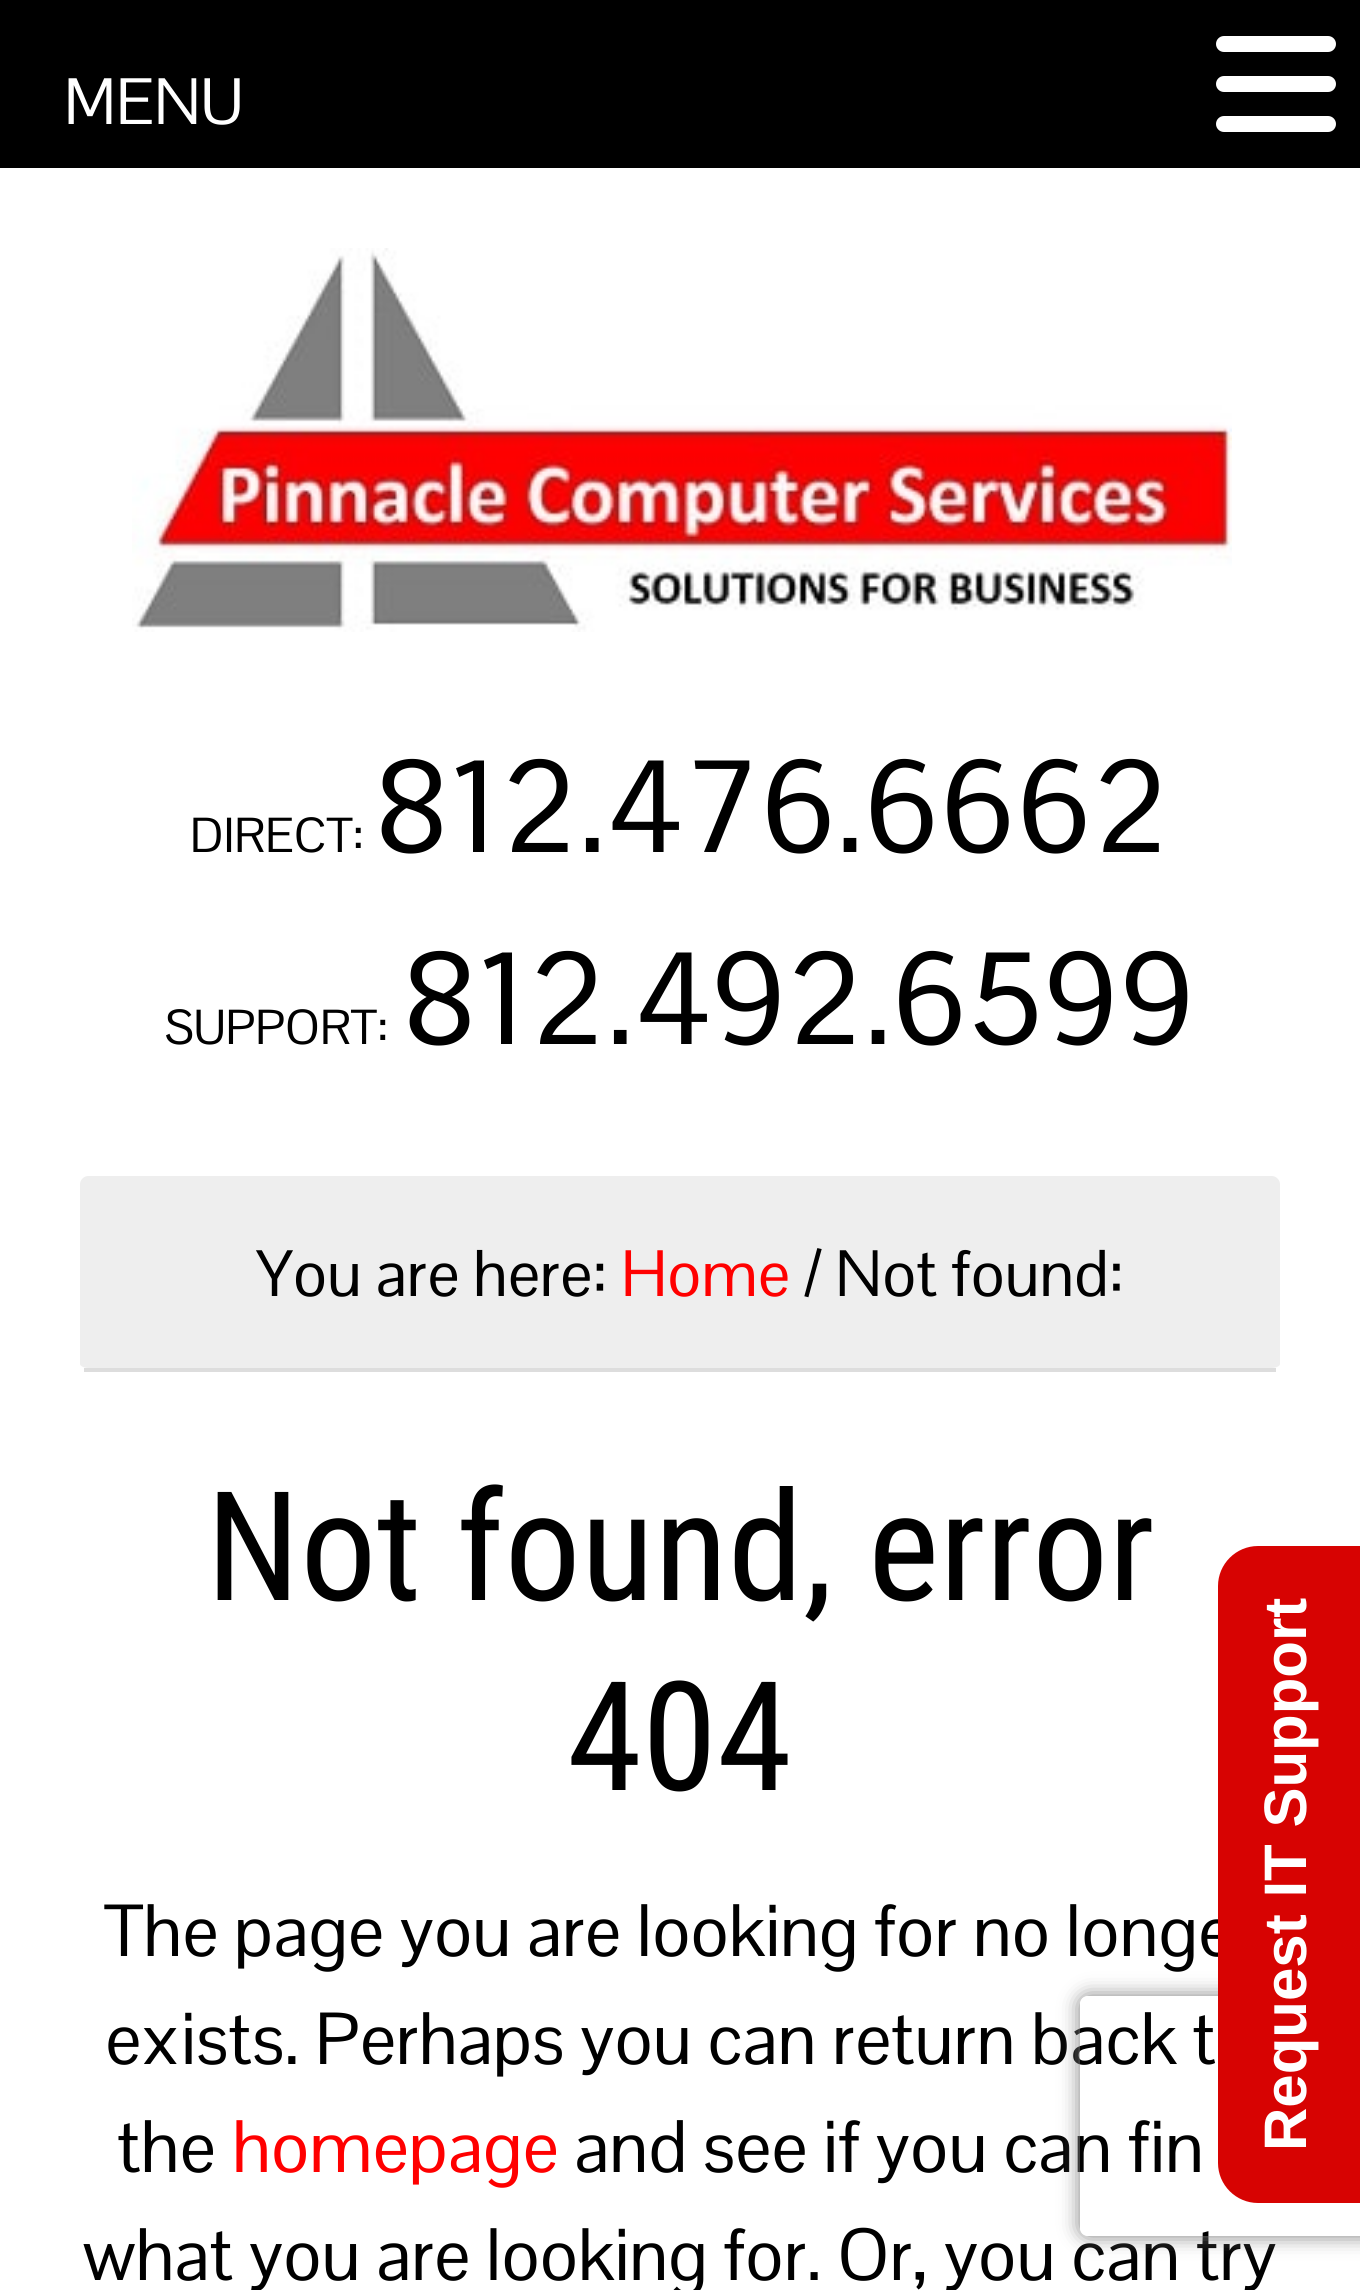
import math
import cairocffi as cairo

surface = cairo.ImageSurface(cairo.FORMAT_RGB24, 1360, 2290)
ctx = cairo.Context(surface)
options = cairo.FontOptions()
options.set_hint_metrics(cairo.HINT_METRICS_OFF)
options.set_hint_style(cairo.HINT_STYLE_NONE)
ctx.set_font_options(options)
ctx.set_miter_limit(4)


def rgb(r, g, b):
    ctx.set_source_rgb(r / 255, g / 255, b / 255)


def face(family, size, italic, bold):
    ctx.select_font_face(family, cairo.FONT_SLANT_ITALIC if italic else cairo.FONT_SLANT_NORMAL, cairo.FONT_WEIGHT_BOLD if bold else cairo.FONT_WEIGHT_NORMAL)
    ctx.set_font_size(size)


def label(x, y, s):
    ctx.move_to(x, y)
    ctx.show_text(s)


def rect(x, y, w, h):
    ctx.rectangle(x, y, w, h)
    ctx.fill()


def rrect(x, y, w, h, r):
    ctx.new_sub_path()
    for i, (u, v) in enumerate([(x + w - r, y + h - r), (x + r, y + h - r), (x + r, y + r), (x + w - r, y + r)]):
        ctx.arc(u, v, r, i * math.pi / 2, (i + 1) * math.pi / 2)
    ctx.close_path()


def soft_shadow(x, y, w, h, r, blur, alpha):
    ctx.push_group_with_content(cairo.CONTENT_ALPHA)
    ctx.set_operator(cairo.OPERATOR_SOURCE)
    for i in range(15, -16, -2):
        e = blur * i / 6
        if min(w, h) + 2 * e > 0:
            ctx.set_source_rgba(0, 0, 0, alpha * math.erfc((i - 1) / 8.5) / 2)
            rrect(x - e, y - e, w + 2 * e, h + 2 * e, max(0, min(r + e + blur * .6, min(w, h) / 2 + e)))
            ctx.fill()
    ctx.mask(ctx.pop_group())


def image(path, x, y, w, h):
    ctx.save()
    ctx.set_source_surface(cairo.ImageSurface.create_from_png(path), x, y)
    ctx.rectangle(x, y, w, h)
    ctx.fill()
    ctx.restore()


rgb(255, 255, 255)
ctx.paint()
rgb(0, 0, 0)
rect(0, 0, 1360, 168)
face('Pontano Sans', 64, 0, 0)
rgb(255, 255, 255)
label(64, 124, 'MENU')
rrect(1216, 36, 120, 16, 8)
ctx.fill()
rrect(1216, 76, 120, 16, 8)
ctx.fill()
rrect(1216, 116, 120, 16, 8)
ctx.fill()
image('image0.png', 132, 248, 1100, 384)
face('Pontano Sans', 48, 0, 0)
rgb(0, 0, 0)
label(190, 852, 'DIRECT:')
face('Pontano Sans', 128, 0, 0)
label(374, 852, '812.476.6662')
face('Pontano Sans', 48, 0, 0)
label(165, 1044, 'SUPPORT:')
face('Pontano Sans', 128, 0, 0)
label(402, 1044, '812.492.6599')
rgb(238, 238, 238)
ctx.new_path()
ctx.move_to(88, 1176)
ctx.line_to(1272, 1176)
ctx.curve_to(1276, 1176, 1280, 1180, 1280, 1184)
ctx.line_to(1280, 1364)
ctx.curve_to(1280, 1366, 1276, 1368, 1272, 1368)
ctx.line_to(88, 1368)
ctx.curve_to(84, 1368, 80, 1366, 80, 1364)
ctx.line_to(80, 1184)
ctx.curve_to(80, 1180, 84, 1176, 88, 1176)
ctx.close_path()
ctx.fill()
rgb(221, 221, 221)
rect(84, 1368, 1192, 4)
face('Pontano Sans', 64, 0, 0)
rgb(0, 0, 0)
label(256, 1296, 'You are here:')
rgb(255, 0, 0)
label(621, 1296, 'Home')
rgb(0, 0, 0)
label(803, 1296, '/ Not found:')
face('Roboto Condensed', 152, 0, 0)
label(206, 1600, 'Not found, error')
label(567, 1790, '404')
face('Pontano Sans', 72, 0, 0)
label(104, 1956, 'The page you are looking for no longe')
label(105, 2064, 'exists. Perhaps you can return back t')
label(117, 2172, 'the')
rgb(255, 0, 0)
label(232, 2172, 'homepage')
rgb(0, 0, 0)
label(574, 2172, 'and see if you can fin')
label(83, 2280, 'what you are looking for. Or, you can try')
ctx.save()
ctx.set_fill_rule(cairo.FILL_RULE_EVEN_ODD)
ctx.new_path()
ctx.move_to(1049, 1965)
ctx.line_to(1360, 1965)
ctx.line_to(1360, 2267)
ctx.line_to(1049, 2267)
ctx.close_path()
ctx.move_to(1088, 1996)
ctx.line_to(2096, 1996)
ctx.curve_to(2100.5, 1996, 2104, 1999.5, 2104, 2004)
ctx.line_to(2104, 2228)
ctx.curve_to(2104, 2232.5, 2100.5, 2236, 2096, 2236)
ctx.line_to(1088, 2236)
ctx.curve_to(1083.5, 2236, 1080, 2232.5, 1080, 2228)
ctx.line_to(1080, 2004)
ctx.curve_to(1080, 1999.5, 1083.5, 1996, 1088, 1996)
ctx.close_path()
ctx.clip()
rgb(128, 128, 128)
soft_shadow(1080, 1996, 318, 240, 8, 10, 1)
ctx.restore()
rgb(215, 3, 2)
ctx.new_path()
ctx.move_to(1218, 2163)
ctx.line_to(1218, 1586)
ctx.curve_to(1218, 1564, 1236, 1546, 1258, 1546)
ctx.line_to(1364, 1546)
ctx.line_to(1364, 2203)
ctx.line_to(1258, 2203)
ctx.curve_to(1236, 2203, 1218, 2185, 1218, 2163)
ctx.close_path()
ctx.fill()
face('Liberation Sans', 60, 0, 1)
rgb(255, 255, 255)
ctx.save()
ctx.translate(1306, 2151)
ctx.rotate(-90 * math.pi / 180)
label(0, 0, 'Request IT Support')
ctx.restore()
surface.write_to_png('render.png')
